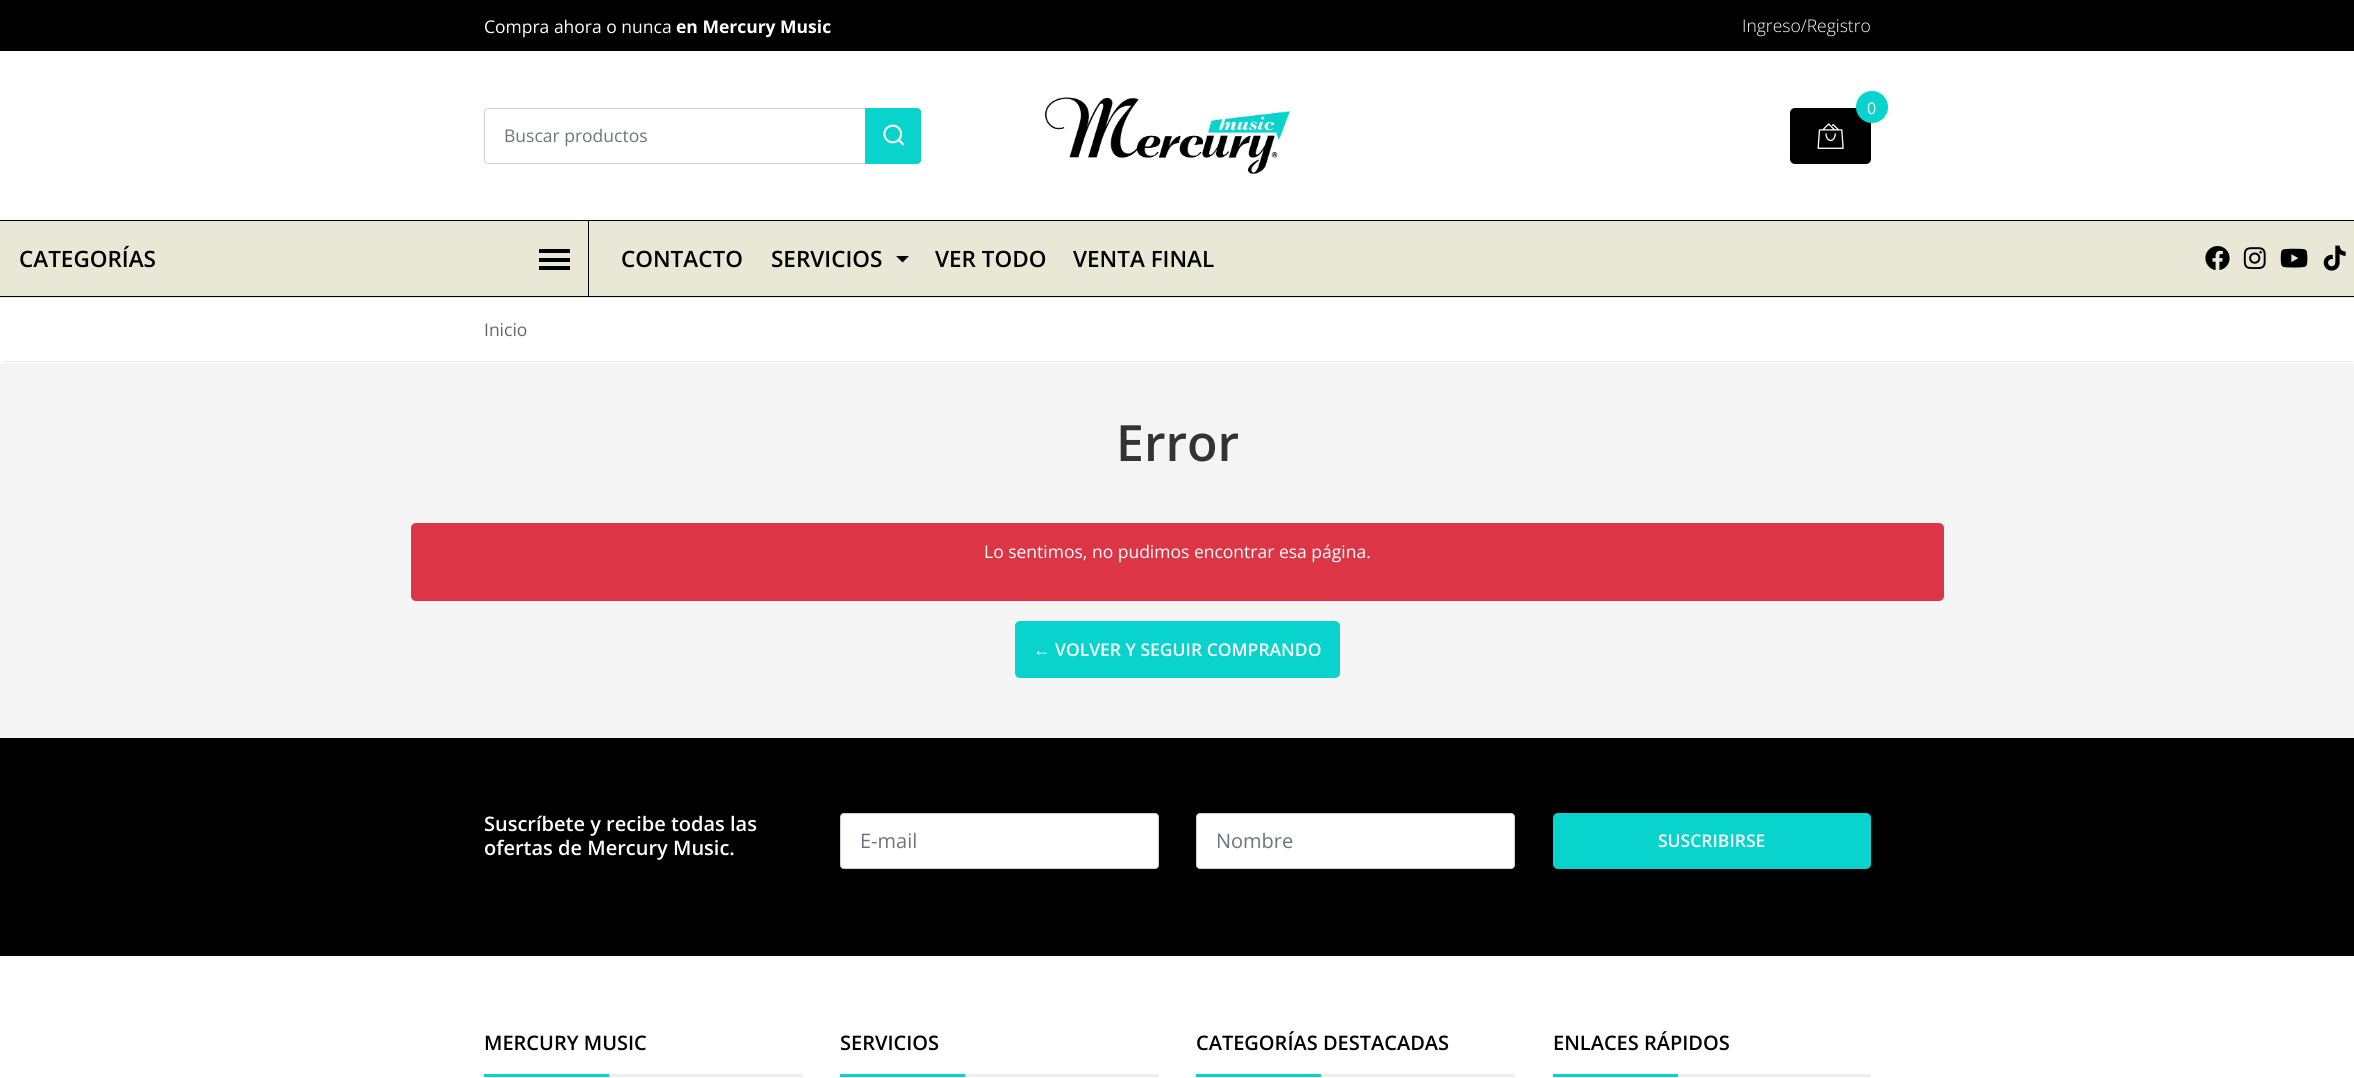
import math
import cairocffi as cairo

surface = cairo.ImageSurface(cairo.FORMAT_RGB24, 2354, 1078)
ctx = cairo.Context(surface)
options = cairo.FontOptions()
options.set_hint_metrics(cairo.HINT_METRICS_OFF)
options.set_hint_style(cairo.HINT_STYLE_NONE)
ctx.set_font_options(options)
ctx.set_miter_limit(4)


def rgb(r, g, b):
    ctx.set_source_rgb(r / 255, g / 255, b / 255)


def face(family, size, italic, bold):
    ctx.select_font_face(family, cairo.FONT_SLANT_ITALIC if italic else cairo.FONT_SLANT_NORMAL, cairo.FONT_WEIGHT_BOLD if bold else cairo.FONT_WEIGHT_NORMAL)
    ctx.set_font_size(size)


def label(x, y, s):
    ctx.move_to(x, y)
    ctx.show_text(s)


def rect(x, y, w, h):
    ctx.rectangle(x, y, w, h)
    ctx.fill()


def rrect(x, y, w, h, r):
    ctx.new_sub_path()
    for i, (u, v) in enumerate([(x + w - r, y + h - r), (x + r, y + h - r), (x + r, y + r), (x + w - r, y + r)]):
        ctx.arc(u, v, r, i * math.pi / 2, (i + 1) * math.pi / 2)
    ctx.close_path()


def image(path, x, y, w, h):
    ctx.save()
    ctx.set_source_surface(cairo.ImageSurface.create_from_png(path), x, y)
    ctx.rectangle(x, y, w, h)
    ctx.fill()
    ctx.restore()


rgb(255, 255, 255)
ctx.paint()
rgb(0, 0, 0)
rect(0, 0, 2354, 51)
face('Open Sans', 17.5, 0, 0)
rgb(255, 255, 255)
label(484, 33, 'Compra ahora o nunca')
face('Open Sans', 17.5, 0, 1)
label(676, 33, 'en Mercury Music')
face('Open Sans Light', 17.5, 0, 0)
label(1742, 32, 'Ingreso/Registro')
image('image0.png', 1044, 97, 247, 77)
rgb(0, 0, 0)
rrect(1790, 108, 81, 56, 5)
ctx.fill()
image('image1.png', 1817, 123, 27, 26)
rgb(9, 211, 205)
ctx.arc(1872, 107, 16, 0, 2 * math.pi)
ctx.fill()
face('Open Sans', 16, 0, 0)
rgb(255, 255, 255)
label(1867, 114, '0')
rrect(484.5, 108.5, 436, 55, 3.5)
rgb(209, 209, 209)
ctx.set_line_width(1)
ctx.stroke()
face('Open Sans', 17.5, 0, 0)
rgb(108, 117, 125)
label(504, 142, 'Buscar productos')
rgb(9, 211, 205)
ctx.new_path()
ctx.move_to(865, 108)
ctx.line_to(917, 108)
ctx.curve_to(919, 108, 921, 110, 921, 112)
ctx.line_to(921, 160)
ctx.curve_to(921, 162, 919, 164, 917, 164)
ctx.line_to(865, 164)
ctx.close_path()
ctx.fill()
image('image2.png', 883, 124, 22, 22)
rgb(233, 232, 215)
rect(0, 221, 2354, 77)
rgb(0, 0, 0)
rect(0, 220, 2354, 1)
rect(0, 296, 2354, 1)
rect(588, 221, 1, 75)
face('Open Sans SemiBold', 22.5, 0, 0)
label(19, 267, 'CATEGORÍAS')
rect(539, 249, 31, 4)
rect(539, 258, 31, 4)
rect(539, 266, 31, 4)
label(621, 267, 'CONTACTO')
label(771, 267, 'SERVICIOS')
ctx.new_path()
ctx.move_to(896, 256)
ctx.line_to(909, 256)
ctx.line_to(902.5, 262.5)
ctx.close_path()
ctx.fill()
label(935, 267, 'VER TODO')
label(1073, 267, 'VENTA FINAL')
image('image3.png', 2205, 246, 25, 24)
image('image4.png', 2243, 247, 23, 23)
image('image5.png', 2280, 248, 28, 20)
image('image6.png', 2323, 245, 23, 26)
rgb(238, 238, 238)
rect(3, 361, 2350, 1)
face('Open Sans', 17.5, 0, 0)
rgb(102, 102, 102)
label(484, 336, 'Inicio')
rgb(245, 245, 245)
rect(0, 363, 2354, 375)
face('Open Sans SemiBold', 50, 0, 0)
rgb(51, 51, 51)
label(1116, 461, 'Error')
rgb(220, 53, 69)
rrect(411, 523, 1533, 78, 5)
ctx.fill()
face('Open Sans', 17.5, 0, 0)
rgb(255, 255, 255)
label(984, 558, 'Lo sentimos, no pudimos encontrar esa página.')
rgb(9, 211, 205)
rrect(1015, 621, 325, 57, 5)
ctx.fill()
face('Liberation Serif', 17.5, 0, 1)
rgb(255, 255, 255)
label(1033, 656, '←')
face('Open Sans SemiBold', 17.5, 0, 0)
label(1055, 656, 'VOLVER Y SEGUIR COMPRANDO')
rgb(0, 0, 0)
rect(0, 738, 2354, 218)
face('Open Sans SemiBold', 20, 0, 0)
rgb(255, 255, 255)
label(484, 831, 'Suscríbete y recibe todas las')
label(484, 855, 'ofertas de Mercury Music.')
rrect(840.5, 813.5, 318, 55, 3.5)
ctx.fill_preserve()
rgb(209, 209, 209)
ctx.stroke()
face('Open Sans', 20, 0, 0)
rgb(108, 117, 125)
label(860, 848, 'E-mail')
rgb(255, 255, 255)
rrect(1196.5, 813.5, 318, 55, 3.5)
ctx.fill_preserve()
rgb(209, 209, 209)
ctx.stroke()
rgb(108, 117, 125)
label(1216, 848, 'Nombre')
rgb(9, 211, 205)
rrect(1553, 813, 318, 56, 5)
ctx.fill()
face('Open Sans SemiBold', 17.5, 0, 0)
rgb(255, 255, 255)
label(1658, 847, 'SUSCRIBIRSE')
rgb(238, 238, 238)
rect(609, 1074, 194, 3)
face('Open Sans SemiBold', 20, 0, 0)
rgb(0, 0, 0)
label(484, 1050, 'MERCURY MUSIC')
rgb(9, 211, 205)
rect(484, 1074, 125, 3)
rgb(238, 238, 238)
rect(965, 1074, 194, 3)
rgb(0, 0, 0)
label(840, 1050, 'SERVICIOS')
rgb(9, 211, 205)
rect(840, 1074, 125, 3)
rgb(238, 238, 238)
rect(1321, 1074, 194, 3)
rgb(0, 0, 0)
label(1196, 1050, 'CATEGORÍAS DESTACADAS')
rgb(9, 211, 205)
rect(1196, 1074, 125, 3)
rgb(238, 238, 238)
rect(1678, 1074, 193, 3)
rgb(0, 0, 0)
label(1553, 1050, 'ENLACES RÁPIDOS')
rgb(9, 211, 205)
rect(1553, 1074, 125, 3)
surface.write_to_png('render.png')
